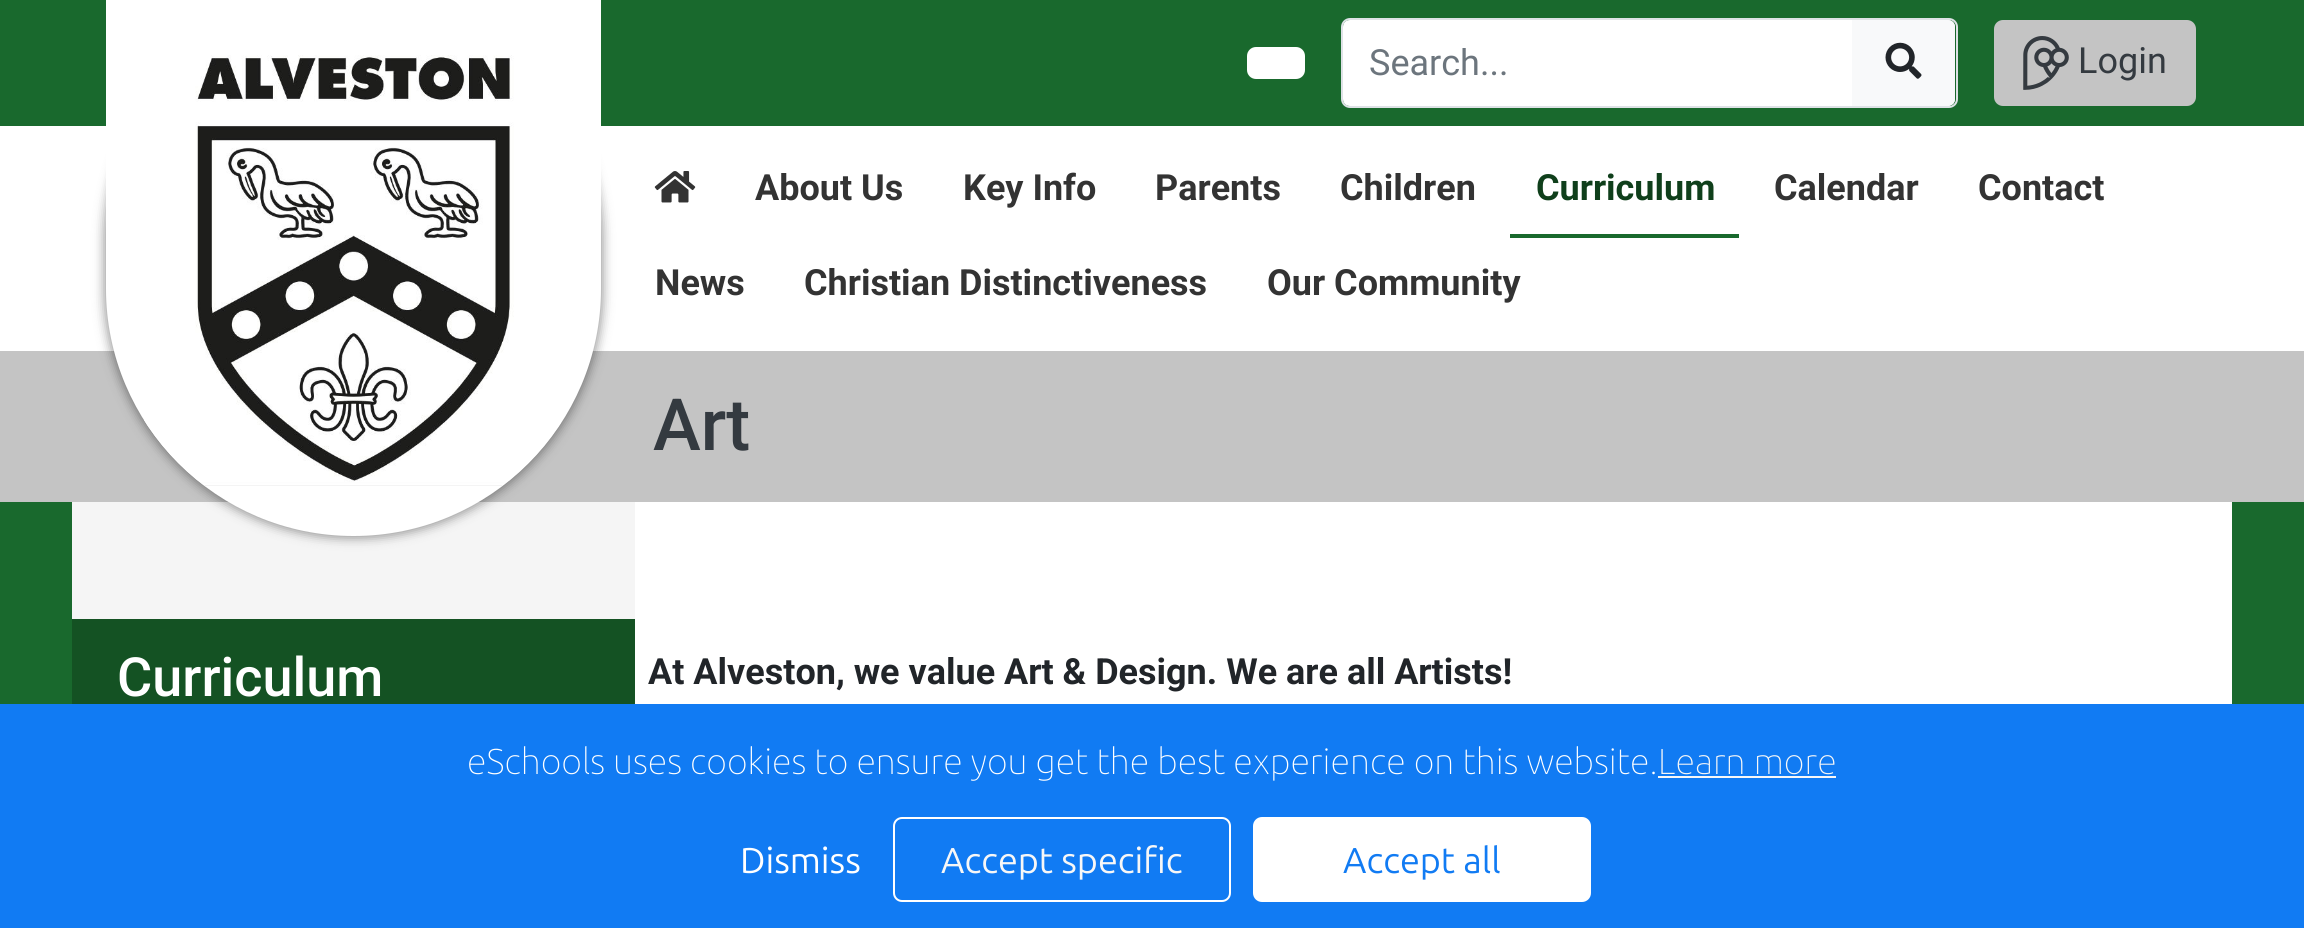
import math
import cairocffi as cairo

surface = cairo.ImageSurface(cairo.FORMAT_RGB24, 2304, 928)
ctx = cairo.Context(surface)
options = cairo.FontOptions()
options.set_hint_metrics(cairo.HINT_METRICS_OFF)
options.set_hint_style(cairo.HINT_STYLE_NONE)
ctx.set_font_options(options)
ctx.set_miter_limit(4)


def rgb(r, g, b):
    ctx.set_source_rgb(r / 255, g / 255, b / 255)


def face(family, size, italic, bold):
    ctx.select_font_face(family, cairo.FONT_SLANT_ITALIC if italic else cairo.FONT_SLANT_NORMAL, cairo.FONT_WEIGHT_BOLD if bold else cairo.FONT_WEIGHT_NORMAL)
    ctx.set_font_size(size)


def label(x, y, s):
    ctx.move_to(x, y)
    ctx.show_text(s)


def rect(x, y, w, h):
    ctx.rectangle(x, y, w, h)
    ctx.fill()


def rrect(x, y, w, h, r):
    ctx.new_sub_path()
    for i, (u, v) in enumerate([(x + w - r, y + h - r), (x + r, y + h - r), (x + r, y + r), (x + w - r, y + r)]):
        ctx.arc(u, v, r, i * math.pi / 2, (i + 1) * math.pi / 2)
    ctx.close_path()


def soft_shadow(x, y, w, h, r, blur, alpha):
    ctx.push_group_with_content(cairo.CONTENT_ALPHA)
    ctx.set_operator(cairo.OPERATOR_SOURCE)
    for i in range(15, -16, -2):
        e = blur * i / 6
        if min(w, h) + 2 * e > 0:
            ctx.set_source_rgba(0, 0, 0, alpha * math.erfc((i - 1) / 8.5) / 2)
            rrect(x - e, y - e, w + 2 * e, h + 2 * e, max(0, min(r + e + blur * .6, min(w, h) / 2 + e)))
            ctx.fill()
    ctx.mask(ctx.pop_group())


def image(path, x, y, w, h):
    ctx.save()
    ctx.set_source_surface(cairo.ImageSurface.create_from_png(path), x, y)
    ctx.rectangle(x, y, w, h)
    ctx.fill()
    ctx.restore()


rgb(255, 255, 255)
ctx.paint()
rgb(25, 105, 45)
rect(0, 0, 2304, 126)
rgb(196, 196, 196)
rect(0, 351, 2304, 151)
rgb(25, 105, 45)
rect(0, 502, 2304, 202)
rgb(245, 245, 245)
rect(72, 502, 563, 117)
rgb(0, 0, 0)
soft_shadow(104, -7, 499, 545, 249.5, 5.5, 0.4)
rgb(255, 255, 255)
ctx.new_path()
ctx.move_to(106, -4)
ctx.line_to(601, -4)
ctx.line_to(601, 288.5)
ctx.curve_to(601, 425, 490, 536, 353.5, 536)
ctx.curve_to(217, 536, 106, 425, 106, 288.5)
ctx.close_path()
ctx.fill()
image('image0.png', 144, 55, 417, 431)
rrect(1247, 47, 58, 32, 9)
ctx.fill()
rrect(1342, 19, 615, 88, 8)
rgb(222, 226, 230)
ctx.stroke()
rgb(255, 255, 255)
ctx.new_path()
ctx.move_to(1350, 20)
ctx.line_to(1854, 20)
ctx.line_to(1854, 106)
ctx.line_to(1350, 106)
ctx.curve_to(1346, 106, 1343, 103, 1343, 99)
ctx.line_to(1343, 27)
ctx.curve_to(1343, 23, 1346, 20, 1350, 20)
ctx.close_path()
ctx.fill()
face('Roboto', 36, 0, 0)
rgb(108, 117, 125)
label(1369, 75, 'Search...')
rgb(248, 249, 250)
ctx.new_path()
ctx.move_to(1852, 20)
ctx.line_to(1948, 20)
ctx.curve_to(1952, 20, 1955, 23, 1955, 27)
ctx.line_to(1955, 99)
ctx.curve_to(1955, 103, 1952, 106, 1948, 106)
ctx.line_to(1852, 106)
ctx.close_path()
ctx.fill()
ctx.set_fill_rule(cairo.FILL_RULE_EVEN_ODD)
ctx.new_path()
ctx.move_to(1852, 20)
ctx.line_to(1852, 106)
ctx.line_to(1949, 106)
ctx.line_to(1953, 104)
ctx.line_to(1854, 104)
ctx.line_to(1854, 22)
ctx.line_to(1953, 22)
ctx.curve_to(1952, 21, 1950, 20, 1948, 20)
ctx.close_path()
ctx.move_to(1955, 27)
ctx.curve_to(1955, 25, 1954, 23, 1953, 22)
ctx.line_to(1953, 104)
ctx.curve_to(1954, 103, 1955, 101, 1955, 99)
ctx.close_path()
ctx.fill()
image('image1.png', 1885, 42, 37, 37)
rgb(196, 196, 196)
rrect(1995, 21, 200, 84, 8)
ctx.fill_preserve()
ctx.stroke()
image('image2.png', 2023, 36, 46, 54)
rgb(52, 58, 64)
label(2078, 73, 'Login')
image('image3.png', 654, 171, 42, 32)
face('Roboto', 36, 0, 1)
rgb(51, 51, 51)
label(755, 200, 'About Us')
label(963, 200, 'Key Info')
label(1155, 200, 'Parents')
label(1340, 200, 'Children')
rgb(25, 105, 45)
rect(1510, 234, 229, 4)
rgb(15, 63, 27)
label(1536, 200, 'Curriculum')
rgb(51, 51, 51)
label(1774, 200, 'Calendar')
label(1978, 200, 'Contact')
label(655, 295, 'News')
label(804, 295, 'Christian Distinctiveness')
label(1267, 295, 'Our Community')
face('Roboto Medium', 72, 0, 0)
rgb(52, 58, 64)
label(653, 450, 'Art')
rgb(255, 255, 255)
rect(635, 502, 1597, 202)
rgb(20, 82, 35)
rect(72, 619, 563, 85)
face('Roboto Medium', 54, 0, 0)
rgb(255, 255, 255)
label(117, 696, 'Curriculum')
face('Roboto', 36, 0, 1)
rgb(33, 37, 41)
label(648, 684, 'At Alveston, we value Art & Design. We are all Artists!')
rgb(17, 123, 243)
rect(0, 704, 2304, 224)
face('Ubuntu Thin', 36, 0, 0)
rgb(255, 255, 255)
label(467, 774, 'eSchools uses cookies to ensure you get the best experience on this website.')
rgb(247, 247, 247)
rect(1658, 776, 178, 2)
label(1658, 774, 'Learn more')
face('Ubuntu', 36, 0, 0)
rgb(255, 255, 255)
label(740, 873, 'Dismiss')
rrect(894, 818, 336, 83, 8)
ctx.stroke()
rgb(247, 247, 247)
label(941, 873, 'Accept specific')
rgb(255, 255, 255)
rrect(1254, 818, 336, 83, 8)
ctx.fill_preserve()
ctx.stroke()
rgb(17, 123, 243)
label(1343, 873, 'Accept all')
surface.write_to_png('render.png')
